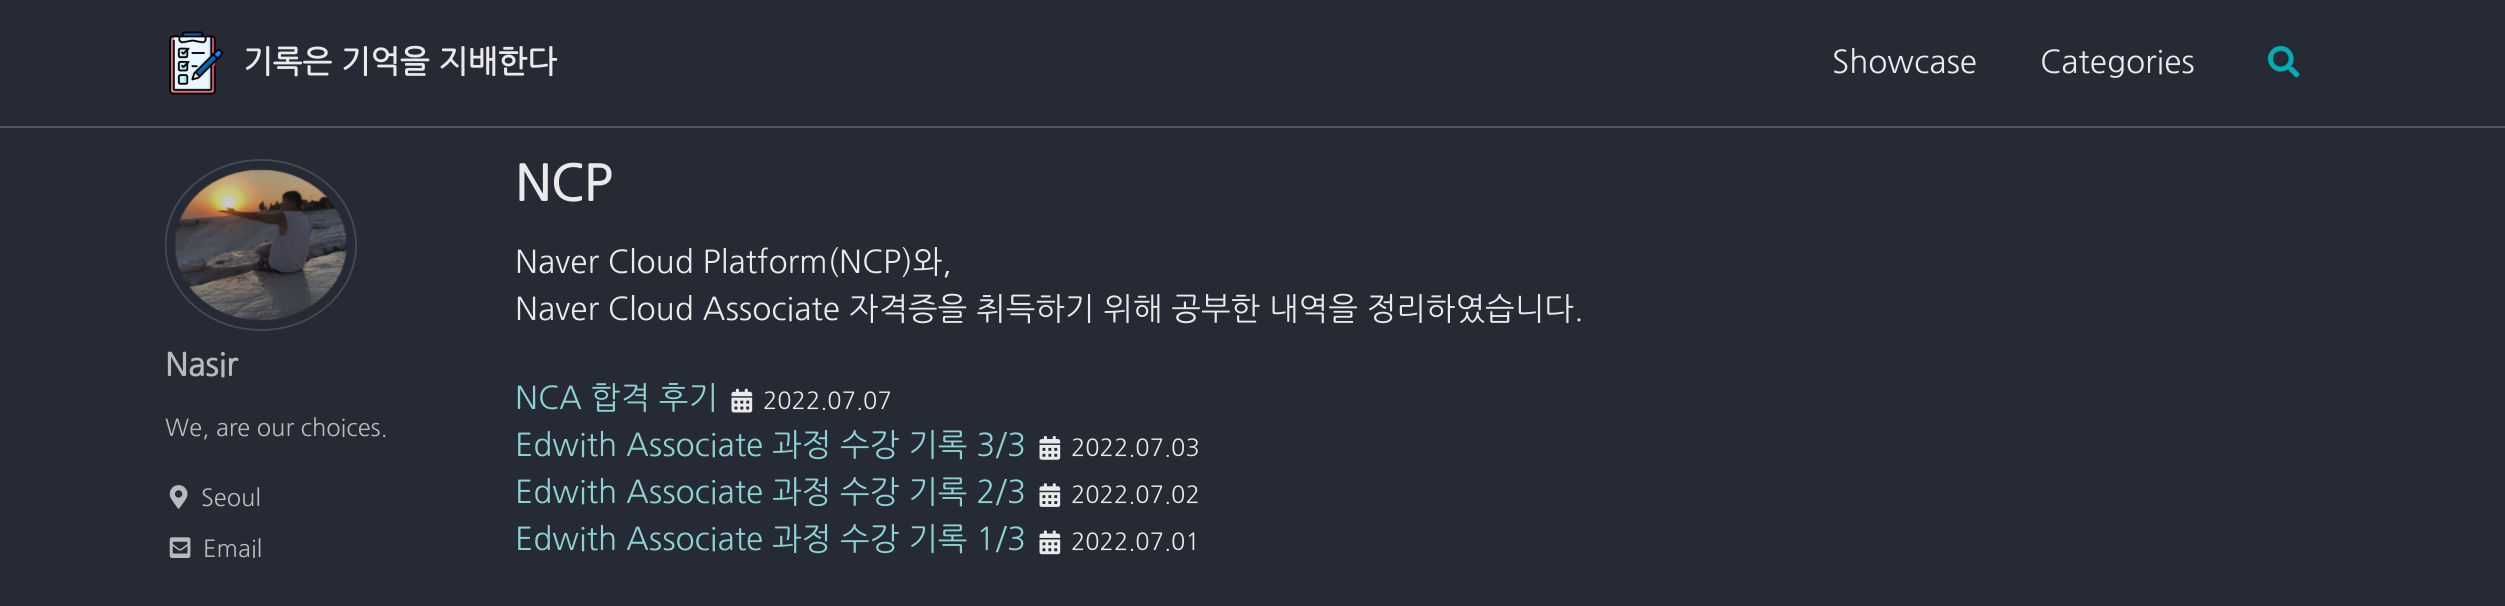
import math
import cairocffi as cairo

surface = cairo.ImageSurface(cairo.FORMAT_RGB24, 2505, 606)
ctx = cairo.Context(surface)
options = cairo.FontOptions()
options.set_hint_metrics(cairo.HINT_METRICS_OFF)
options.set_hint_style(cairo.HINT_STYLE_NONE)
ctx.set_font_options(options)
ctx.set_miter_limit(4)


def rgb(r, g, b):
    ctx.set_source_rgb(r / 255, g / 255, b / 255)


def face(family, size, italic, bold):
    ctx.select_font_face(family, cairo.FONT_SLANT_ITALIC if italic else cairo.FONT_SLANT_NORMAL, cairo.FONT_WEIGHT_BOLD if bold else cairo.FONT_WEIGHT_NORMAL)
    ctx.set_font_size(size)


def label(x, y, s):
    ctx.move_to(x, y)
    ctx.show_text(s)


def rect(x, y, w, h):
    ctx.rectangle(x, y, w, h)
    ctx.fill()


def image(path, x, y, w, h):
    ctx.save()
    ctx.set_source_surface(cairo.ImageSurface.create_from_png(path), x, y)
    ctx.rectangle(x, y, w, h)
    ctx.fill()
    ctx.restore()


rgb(37, 42, 52)
ctx.paint()
rgb(81, 85, 93)
rect(0, 126, 2505, 2)
image('image0.png', 169, 31, 54, 64)
face('NanumGothic', 31.5, 0, 1)
rgb(234, 234, 234)
label(243, 73, '기록은 기억을 지배한다')
face('NanumGothic', 31.5, 0, 0)
label(1832, 73, 'Showcase')
label(2040, 73, 'Categories')
image('image1.png', 2268, 45, 32, 33)
ctx.save()
ctx.rectangle(165, 128, 318, 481)
ctx.clip()
ctx.new_path()
ctx.move_to(261, 160)
ctx.curve_to(313.5, 160, 356, 198, 356, 245)
ctx.curve_to(356, 292, 313.5, 330, 261, 330)
ctx.curve_to(208, 330, 165.5, 292, 165.5, 245)
ctx.curve_to(165.5, 198, 208, 160, 261, 160)
ctx.close_path()
rgb(70, 74, 83)
ctx.set_line_width(1.8)
ctx.stroke()
ctx.restore()
image('image2.png', 175, 169, 172, 152)
face('NanumGothic', 31.5, 0, 1)
rgb(185, 186, 189)
label(165, 376, 'Nasir')
face('NanumGothic', 23.6, 0, 0)
label(165, 436, 'We, are our choices.')
image('image3.png', 169, 485, 19, 24)
label(201, 506, 'Seoul')
image('image4.png', 169, 537, 22, 21)
label(203, 557, 'Email')
face('NanumGothic', 49, 0, 1)
rgb(234, 234, 234)
label(515, 201, 'NCP')
face('NanumGothic', 31.5, 0, 0)
label(515, 273, 'Naver Cloud Platform(NCP)와,')
label(515, 320, 'Naver Cloud Associate 자격증을 취득하기 위해 공부한 내역을 정리하였습니다.')
rgb(140, 210, 213)
label(515, 409, 'NCA 합격 후기')
image('image5.png', 731, 388, 22, 25)
face('NanumGothic', 23.6, 0, 0)
rgb(234, 234, 234)
label(763, 409, '2022.07.07')
face('NanumGothic', 31.5, 0, 0)
rgb(140, 210, 213)
label(515, 456, 'Edwith Associate 과정 수강 기록 3/3')
image('image6.png', 1039, 436, 22, 24)
face('NanumGothic', 23.6, 0, 0)
rgb(234, 234, 234)
label(1071, 456, '2022.07.03')
face('NanumGothic', 31.5, 0, 0)
rgb(140, 210, 213)
label(515, 503, 'Edwith Associate 과정 수강 기록 2/3')
image('image7.png', 1039, 483, 22, 24)
face('NanumGothic', 23.6, 0, 0)
rgb(234, 234, 234)
label(1071, 503, '2022.07.02')
face('NanumGothic', 31.5, 0, 0)
rgb(140, 210, 213)
label(515, 550, 'Edwith Associate 과정 수강 기록 1/3')
image('image8.png', 1039, 530, 22, 25)
face('NanumGothic', 23.6, 0, 0)
rgb(234, 234, 234)
label(1071, 550, '2022.07.01')
surface.write_to_png('render.png')
